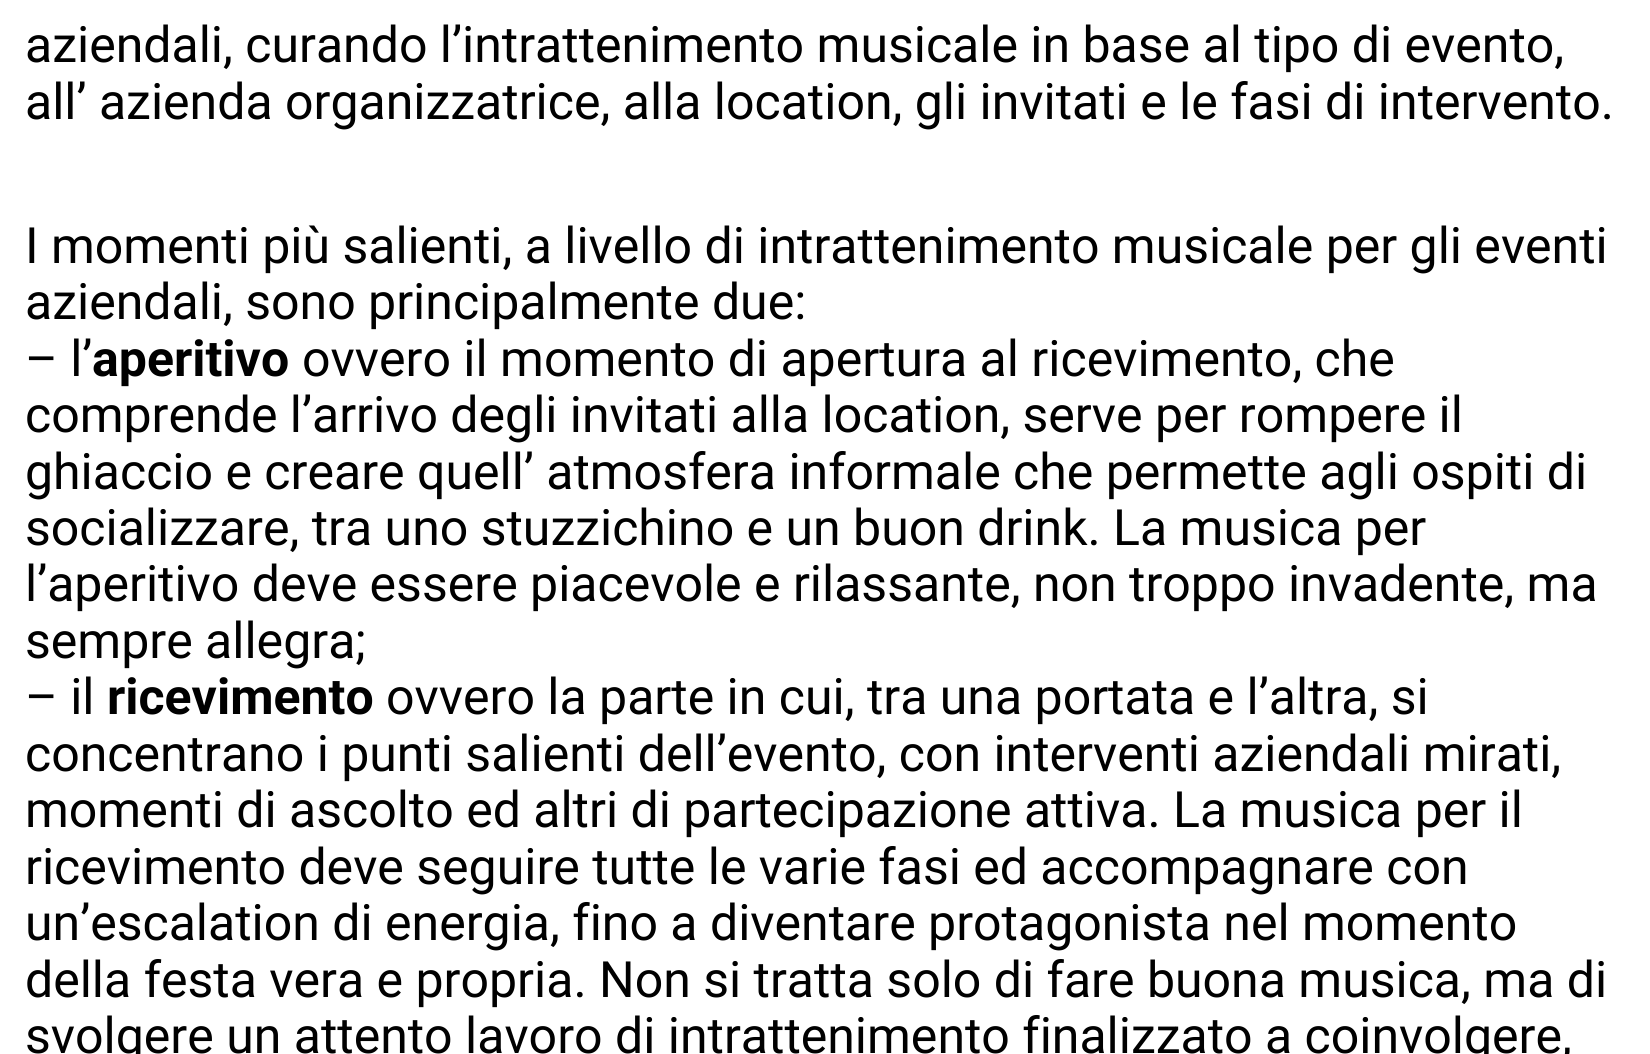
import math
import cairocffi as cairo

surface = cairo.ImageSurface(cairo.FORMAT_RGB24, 1650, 1054)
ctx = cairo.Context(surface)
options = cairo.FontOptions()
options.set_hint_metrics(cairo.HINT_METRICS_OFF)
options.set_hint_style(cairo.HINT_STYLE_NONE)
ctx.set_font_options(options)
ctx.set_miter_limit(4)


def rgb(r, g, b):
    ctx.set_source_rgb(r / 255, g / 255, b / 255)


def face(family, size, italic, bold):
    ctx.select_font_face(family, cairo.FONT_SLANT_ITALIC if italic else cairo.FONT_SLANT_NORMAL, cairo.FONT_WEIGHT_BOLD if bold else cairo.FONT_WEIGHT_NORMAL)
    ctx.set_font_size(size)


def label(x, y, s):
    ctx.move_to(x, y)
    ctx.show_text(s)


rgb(255, 255, 255)
ctx.paint()
face('Roboto', 50, 0, 0)
rgb(0, 0, 0)
label(25, 62, 'aziendali, curando l’intrattenimento musicale in base al tipo di evento,')
label(25, 119, 'all’ azienda organizzatrice, alla location, gli invitati e le fasi di intervento.')
label(25, 263, 'I momenti più salienti, a livello di intrattenimento musicale per gli eventi')
label(25, 319, 'aziendali, sono principalmente due:')
label(25, 376, '– l’')
face('Roboto', 50, 0, 1)
label(92, 376, 'aperitivo')
face('Roboto', 50, 0, 0)
label(302, 376, 'ovvero il momento di apertura al ricevimento, che')
label(25, 432, 'comprende l’arrivo degli invitati alla location, serve per rompere il')
label(25, 489, 'ghiaccio e creare quell’ atmosfera informale che permette agli ospiti di')
label(25, 545, 'socializzare, tra uno stuzzichino e un buon drink. La musica per')
label(25, 601, 'l’aperitivo deve essere piacevole e rilassante, non troppo invadente, ma')
label(25, 658, 'sempre allegra;')
label(25, 714, '– il')
face('Roboto', 50, 0, 1)
label(107, 714, 'ricevimento')
face('Roboto', 50, 0, 0)
label(386, 714, 'ovvero la parte in cui, tra una portata e l’altra, si')
label(25, 771, 'concentrano i punti salienti dell’evento, con interventi aziendali mirati,')
label(25, 827, 'momenti di ascolto ed altri di partecipazione attiva. La musica per il')
label(25, 884, 'ricevimento deve seguire tutte le varie fasi ed accompagnare con')
label(25, 940, 'un’escalation di energia, fino a diventare protagonista nel momento')
label(25, 997, 'della festa vera e propria. Non si tratta solo di fare buona musica, ma di')
label(25, 1053, 'svolgere un attento lavoro di intrattenimento finalizzato a coinvolgere,')
surface.write_to_png('render.png')
